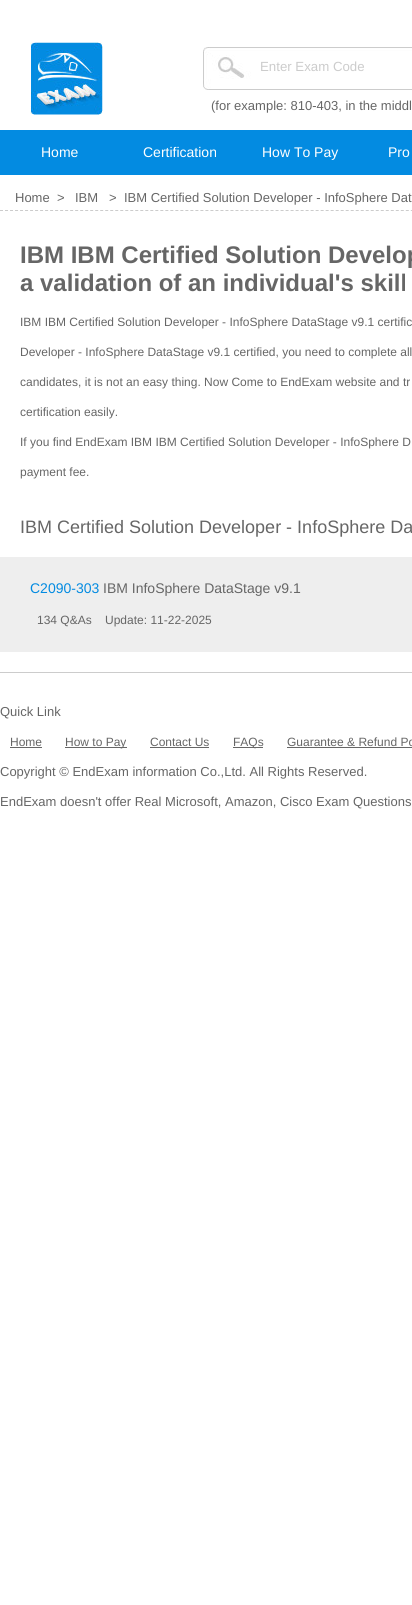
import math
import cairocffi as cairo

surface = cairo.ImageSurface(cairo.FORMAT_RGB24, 412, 1605)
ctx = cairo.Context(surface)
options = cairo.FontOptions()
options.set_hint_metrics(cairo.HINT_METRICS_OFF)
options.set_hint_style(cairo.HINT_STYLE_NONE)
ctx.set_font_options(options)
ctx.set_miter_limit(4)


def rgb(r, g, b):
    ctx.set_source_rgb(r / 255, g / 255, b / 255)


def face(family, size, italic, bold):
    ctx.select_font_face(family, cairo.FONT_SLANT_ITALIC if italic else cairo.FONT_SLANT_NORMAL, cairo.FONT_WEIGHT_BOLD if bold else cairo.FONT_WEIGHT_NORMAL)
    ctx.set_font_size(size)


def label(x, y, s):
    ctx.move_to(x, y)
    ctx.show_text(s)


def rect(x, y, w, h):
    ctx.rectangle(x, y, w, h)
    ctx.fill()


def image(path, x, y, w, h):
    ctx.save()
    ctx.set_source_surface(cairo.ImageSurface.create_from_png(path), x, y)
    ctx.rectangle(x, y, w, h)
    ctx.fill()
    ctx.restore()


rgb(255, 255, 255)
ctx.paint()
image('image0.png', 30, 42, 73, 73)
image('image1.png', 203, 47, 209, 43)
face('Liberation Sans', 13.25, 0, 0)
rgb(204, 204, 204)
label(260, 71, 'Enter Exam Code')
face('Liberation Sans', 13, 0, 0)
rgb(102, 102, 102)
label(211, 110, '(for example: 810-403, in the middl')
rgb(3, 139, 225)
rect(0, 130, 412, 45)
face('Liberation Sans', 14, 0, 0)
rgb(255, 255, 255)
label(41, 157, 'Home')
label(143, 157, 'Certification')
label(262, 157, 'How To Pay')
label(388, 157, 'Pro')
ctx.new_path()
ctx.move_to(0, 210.5)
ctx.line_to(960, 210.5)
rgb(204, 204, 204)
ctx.set_line_width(1)
ctx.set_dash([3, 2.01])
ctx.stroke()
face('Liberation Sans', 13, 0, 0)
rgb(102, 102, 102)
label(15, 202, 'Home  >')
label(75, 202, 'IBM')
label(109, 202, '>')
label(124, 202, 'IBM Certified Solution Developer - InfoSphere Dat')
face('Liberation Sans', 24, 0, 1)
label(20, 263, 'IBM IBM Certified Solution Develop')
label(20, 291, 'a validation of an individual\'s skill')
face('Liberation Sans', 12, 0, 0)
label(20, 326, 'IBM IBM Certified Solution Developer - InfoSphere DataStage v9.1 certific')
label(20, 356, 'Developer - InfoSphere DataStage v9.1 certified, you need to complete all')
label(20, 386, 'candidates, it is not an easy thing. Now Come to EndExam website and tr')
label(20, 416, 'certification easily.')
label(20, 446, 'If you find EndExam IBM IBM Certified Solution Developer - InfoSphere D')
label(20, 476, 'payment fee.')
face('Liberation Sans', 18, 0, 0)
label(20, 533, 'IBM Certified Solution Developer - InfoSphere Da')
rgb(238, 238, 238)
rect(0, 557, 412, 95)
face('Liberation Sans', 14, 0, 0)
rgb(3, 139, 225)
label(30, 593, 'C2090-303')
rgb(102, 102, 102)
label(103, 593, 'IBM InfoSphere DataStage v9.1')
face('Liberation Sans', 12, 0, 0)
label(37, 624, '134 Q&As    Update: 11-22-2025')
rgb(204, 204, 204)
rect(0, 672, 412, 1)
face('Liberation Sans', 13, 0, 0)
rgb(102, 102, 102)
label(0, 716, 'Quick Link')
face('Liberation Sans', 12, 0, 0)
label(10, 746, 'Home')
rect(10, 747, 32, 1)
rect(65, 747, 62, 1)
label(65, 746, 'How to Pay')
label(150, 746, 'Contact Us')
rect(150, 747, 59, 1)
rect(233, 747, 30, 1)
label(233, 746, 'FAQs')
label(287, 746, 'Guarantee & Refund Po')
rect(287, 747, 125, 1)
face('Liberation Sans', 13, 0, 0)
label(0, 776, 'Copyright © EndExam information Co.,Ltd. All Rights Reserved.')
label(0, 806, 'EndExam doesn\'t offer Real Microsoft, Amazon, Cisco Exam Questions')
surface.write_to_png('render.png')
